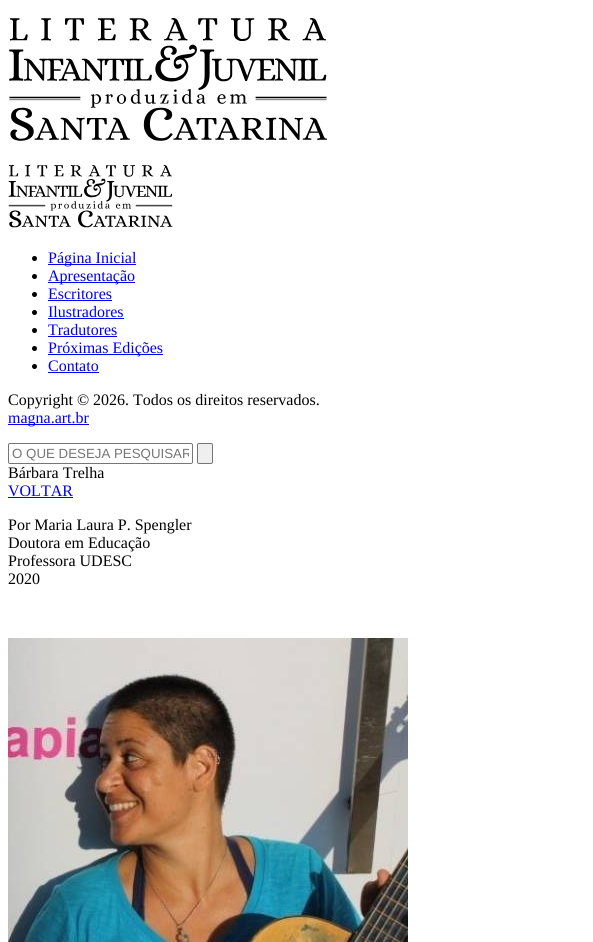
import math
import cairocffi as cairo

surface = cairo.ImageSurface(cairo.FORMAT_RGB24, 593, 942)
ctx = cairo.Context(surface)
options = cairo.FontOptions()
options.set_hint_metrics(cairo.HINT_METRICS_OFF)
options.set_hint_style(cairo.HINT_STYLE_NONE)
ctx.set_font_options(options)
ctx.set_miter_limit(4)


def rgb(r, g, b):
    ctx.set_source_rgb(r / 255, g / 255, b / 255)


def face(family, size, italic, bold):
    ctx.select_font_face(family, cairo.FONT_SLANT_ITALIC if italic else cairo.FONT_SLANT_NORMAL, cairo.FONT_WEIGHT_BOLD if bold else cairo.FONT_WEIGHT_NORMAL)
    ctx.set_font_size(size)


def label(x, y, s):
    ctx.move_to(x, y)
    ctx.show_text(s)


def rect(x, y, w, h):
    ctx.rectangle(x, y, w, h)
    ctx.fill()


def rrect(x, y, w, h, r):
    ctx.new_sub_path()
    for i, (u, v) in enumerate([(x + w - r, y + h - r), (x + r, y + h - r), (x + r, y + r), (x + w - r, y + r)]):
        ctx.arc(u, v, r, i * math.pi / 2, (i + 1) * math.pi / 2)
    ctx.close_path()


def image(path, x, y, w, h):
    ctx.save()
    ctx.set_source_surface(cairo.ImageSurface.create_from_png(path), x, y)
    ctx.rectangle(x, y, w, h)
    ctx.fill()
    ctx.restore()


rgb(255, 255, 255)
ctx.paint()
image('image0.png', 9, 18, 318, 123)
image('image1.png', 8, 165, 165, 63)
rgb(0, 0, 0)
ctx.arc(34.5, 258.5, 2.5, 0, 2 * math.pi)
ctx.fill()
rgb(0, 0, 238)
rect(48, 264, 88, 1)
face('Liberation Serif', 16, 0, 0)
label(48, 263, 'Página Inicial')
rgb(0, 0, 0)
ctx.new_path()
ctx.arc(34.5, 276.5, 2.5, 0, 2 * math.pi)
ctx.fill()
rgb(0, 0, 238)
rect(48, 282, 87, 1)
label(48, 281, 'Apresentação')
rgb(0, 0, 0)
ctx.new_path()
ctx.arc(34.5, 294.5, 2.5, 0, 2 * math.pi)
ctx.fill()
rgb(0, 0, 238)
label(48, 299, 'Escritores')
rect(48, 300, 64, 1)
rgb(0, 0, 0)
ctx.new_path()
ctx.arc(34.5, 312.5, 2.5, 0, 2 * math.pi)
ctx.fill()
rgb(0, 0, 238)
label(48, 317, 'Ilustradores')
rect(48, 318, 76, 1)
rgb(0, 0, 0)
ctx.new_path()
ctx.arc(34.5, 330.5, 2.5, 0, 2 * math.pi)
ctx.fill()
rgb(0, 0, 238)
label(48, 335, 'Tradutores')
rect(48, 336, 69, 1)
rgb(0, 0, 0)
ctx.new_path()
ctx.arc(34.5, 348.5, 2.5, 0, 2 * math.pi)
ctx.fill()
rgb(0, 0, 238)
rect(48, 354, 115, 1)
label(48, 353, 'Próximas Edições')
rgb(0, 0, 0)
ctx.new_path()
ctx.arc(34.5, 366.5, 2.5, 0, 2 * math.pi)
ctx.fill()
rgb(0, 0, 238)
label(48, 371, 'Contato')
rect(48, 372, 51, 1)
rgb(0, 0, 0)
label(8, 405, 'Copyright © 2026. Todos os direitos reservados.')
rgb(0, 0, 238)
rect(8, 424, 81, 1)
label(8, 423, 'magna.art.br')
rrect(8.5, 443.5, 184, 20, 1.5)
rgb(118, 118, 118)
ctx.set_line_width(1)
ctx.stroke()
ctx.save()
ctx.rectangle(12, 446, 177, 15)
ctx.clip()
face('Liberation Sans', 13.3, 0, 0)
rgb(117, 117, 117)
label(12, 458, 'O QUE DESEJA PESQUISAR')
ctx.restore()
rgb(239, 239, 239)
rrect(197.5, 443.5, 15, 20, 1.5)
ctx.fill_preserve()
rgb(118, 118, 118)
ctx.stroke()
rgb(0, 0, 0)
label(8, 478, 'Bárbara Trelha')
rgb(0, 0, 238)
label(8, 496, 'VOLTAR')
rect(8, 497, 65, 1)
rgb(0, 0, 0)
label(8, 530, 'Por Maria Laura P. Spengler')
label(8, 548, 'Doutora em Educação')
label(8, 566, 'Professora UDESC')
label(8, 584, '2020')
image('image2.png', 8, 638, 400, 304)
surface.write_to_png('render.png')
